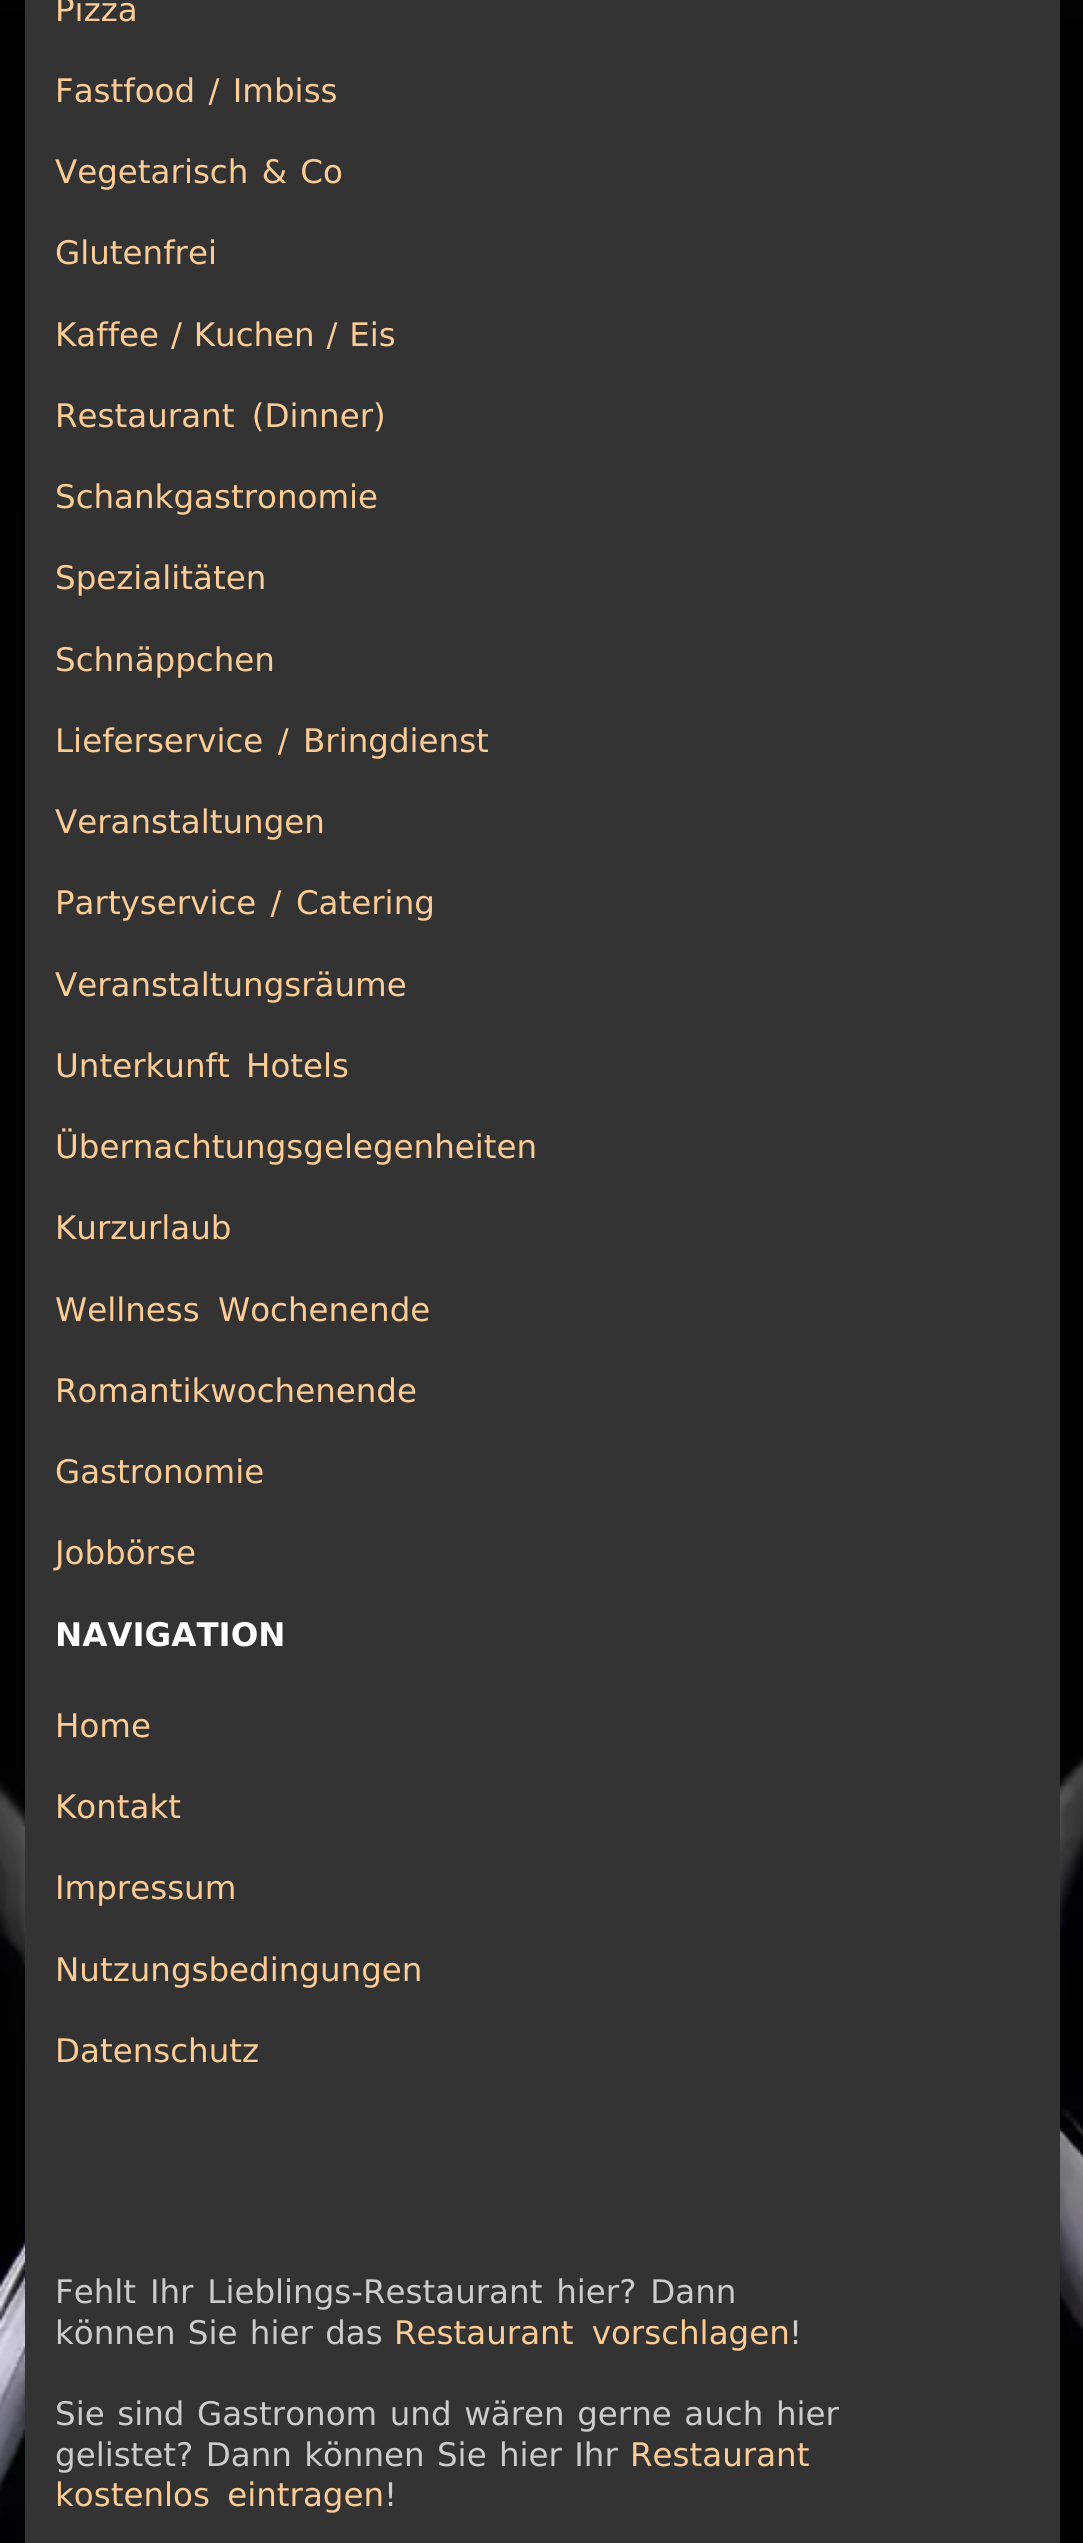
import math
import cairocffi as cairo

surface = cairo.ImageSurface(cairo.FORMAT_RGB24, 1083, 2543)
ctx = cairo.Context(surface)
options = cairo.FontOptions()
options.set_hint_metrics(cairo.HINT_METRICS_OFF)
options.set_hint_style(cairo.HINT_STYLE_NONE)
ctx.set_font_options(options)
ctx.set_miter_limit(4)


def rgb(r, g, b):
    ctx.set_source_rgb(r / 255, g / 255, b / 255)


def face(family, size, italic, bold):
    ctx.select_font_face(family, cairo.FONT_SLANT_ITALIC if italic else cairo.FONT_SLANT_NORMAL, cairo.FONT_WEIGHT_BOLD if bold else cairo.FONT_WEIGHT_NORMAL)
    ctx.set_font_size(size)


def label(x, y, s):
    ctx.move_to(x, y)
    ctx.show_text(s)


def tracked(x, y, s, letter, word):
    ctx.move_to(x, y)
    for ch in s:
        ctx.show_text(ch)
        ctx.rel_move_to(letter + word * (ch == ' '), 0)


def rect(x, y, w, h):
    ctx.rectangle(x, y, w, h)
    ctx.fill()


def image(path, x, y, w, h):
    ctx.save()
    ctx.set_source_surface(cairo.ImageSurface.create_from_png(path), x, y)
    ctx.rectangle(x, y, w, h)
    ctx.fill()
    ctx.restore()


rgb(255, 255, 255)
ctx.paint()
image('image0.png', 0, 0, 1083, 2543)
rgb(51, 51, 51)
rect(25, 0, 1035, 2543)
face('DejaVu Sans', 32.5, 0, 0)
rgb(255, 204, 149)
label(55, 21, 'Pizza')
tracked(55, 102, 'Fastfood / Imbiss', 0, 3)
tracked(55, 183, 'Vegetarisch & Co', 0, 3)
label(55, 264, 'Glutenfrei')
tracked(55, 346, 'Kaffee / Kuchen / Eis', 0, 1.5)
tracked(55, 427, 'Restaurant (Dinner)', 0, 7)
label(55, 508, 'Schankgastronomie')
label(55, 589, 'Spezialitäten')
label(55, 671, 'Schnäppchen')
tracked(55, 752, 'Lieferservice / Bringdienst', 0, 4)
label(55, 833, 'Veranstaltungen')
tracked(55, 914, 'Partyservice / Catering', 0, 4)
label(55, 996, 'Veranstaltungsräume')
tracked(55, 1077, 'Unterkunft Hotels', 0, 6)
label(55, 1158, 'Übernachtungsgelegenheiten')
label(55, 1239, 'Kurzurlaub')
tracked(55, 1321, 'Wellness Wochenende', 0, 8)
label(55, 1402, 'Romantikwochenende')
label(55, 1483, 'Gastronomie')
label(55, 1564, 'Jobbörse')
face('DejaVu Sans', 32.5, 0, 1)
rgb(255, 255, 255)
label(55, 1646, 'NAVIGATION')
face('DejaVu Sans', 32.5, 0, 0)
rgb(255, 204, 149)
label(55, 1737, 'Home')
label(55, 1818, 'Kontakt')
label(55, 1899, 'Impressum')
label(55, 1981, 'Nutzungsbedingungen')
label(55, 2062, 'Datenschutz')
rgb(204, 204, 204)
tracked(55, 2303, 'Fehlt Ihr Lieblings-Restaurant hier? Dann', 0, 3.5)
tracked(55, 2344, 'können Sie hier das', 0, 2)
rgb(255, 204, 149)
tracked(394, 2344, 'Restaurant vorschlagen', 0, 8)
rgb(204, 204, 204)
label(789, 2344, '!')
tracked(55, 2425, 'Sie sind Gastronom und wären gerne auch hier', 0, 2.25)
tracked(55, 2466, 'gelistet? Dann können Sie hier Ihr', 0, 2)
rgb(255, 204, 149)
label(630, 2466, 'Restaurant')
tracked(55, 2506, 'kostenlos eintragen', 0, 7)
rgb(204, 204, 204)
label(384, 2506, '!')
surface.write_to_png('render.png')
